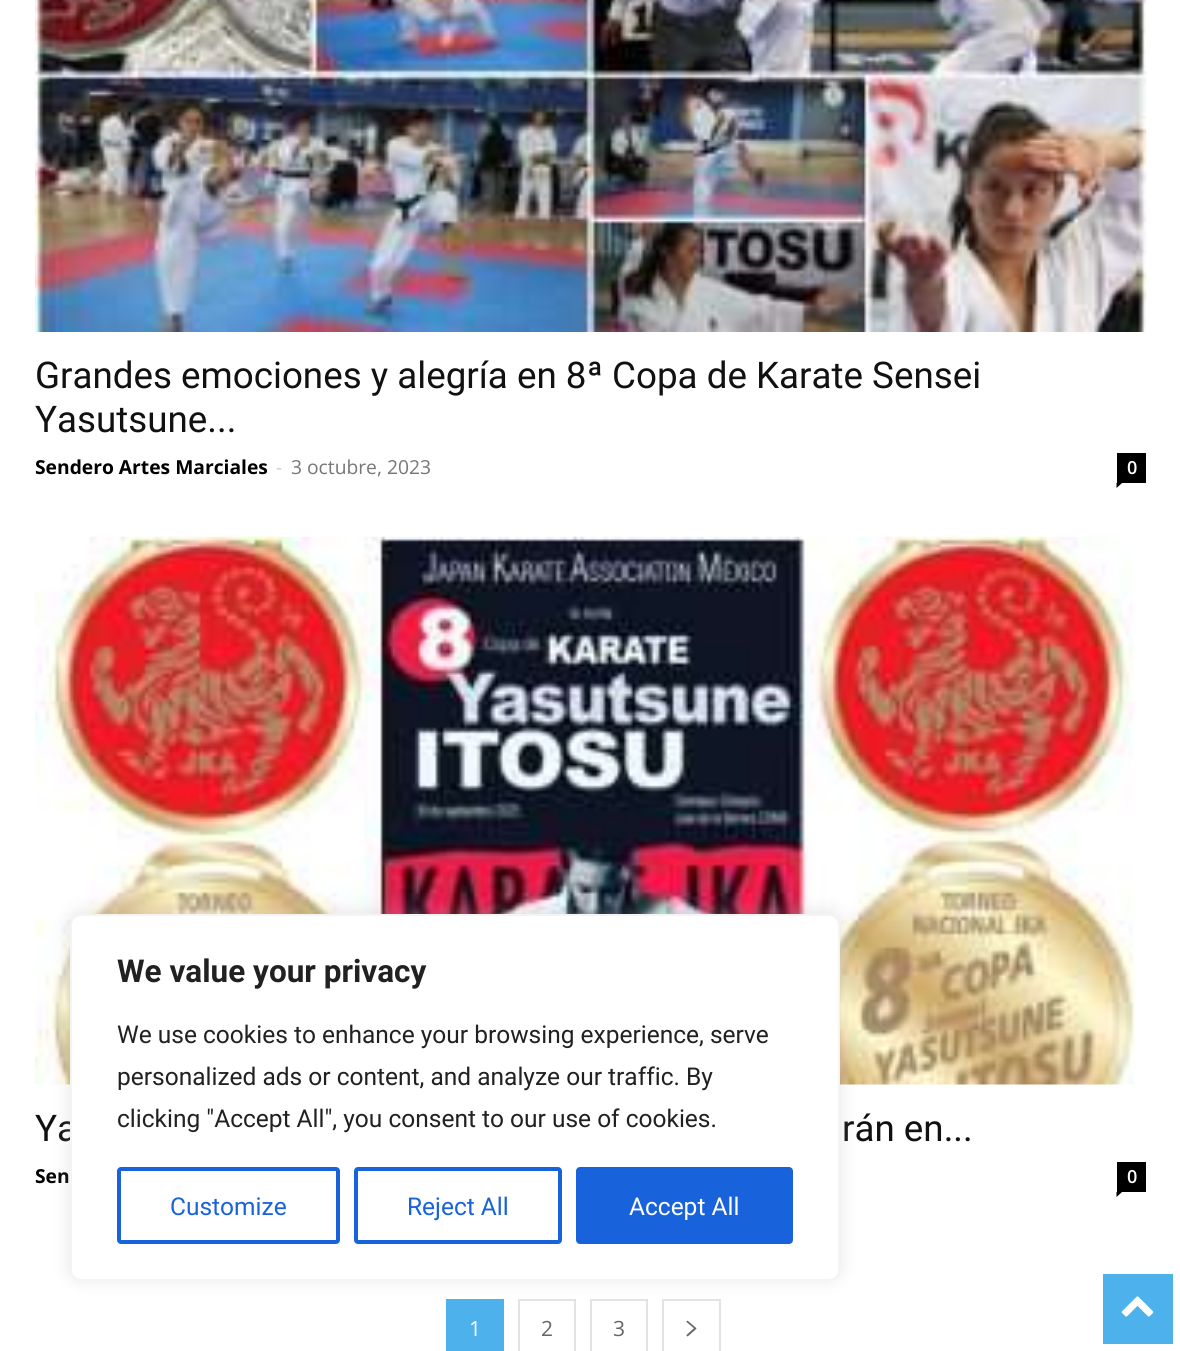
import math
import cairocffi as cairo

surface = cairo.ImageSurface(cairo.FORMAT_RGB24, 1180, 1351)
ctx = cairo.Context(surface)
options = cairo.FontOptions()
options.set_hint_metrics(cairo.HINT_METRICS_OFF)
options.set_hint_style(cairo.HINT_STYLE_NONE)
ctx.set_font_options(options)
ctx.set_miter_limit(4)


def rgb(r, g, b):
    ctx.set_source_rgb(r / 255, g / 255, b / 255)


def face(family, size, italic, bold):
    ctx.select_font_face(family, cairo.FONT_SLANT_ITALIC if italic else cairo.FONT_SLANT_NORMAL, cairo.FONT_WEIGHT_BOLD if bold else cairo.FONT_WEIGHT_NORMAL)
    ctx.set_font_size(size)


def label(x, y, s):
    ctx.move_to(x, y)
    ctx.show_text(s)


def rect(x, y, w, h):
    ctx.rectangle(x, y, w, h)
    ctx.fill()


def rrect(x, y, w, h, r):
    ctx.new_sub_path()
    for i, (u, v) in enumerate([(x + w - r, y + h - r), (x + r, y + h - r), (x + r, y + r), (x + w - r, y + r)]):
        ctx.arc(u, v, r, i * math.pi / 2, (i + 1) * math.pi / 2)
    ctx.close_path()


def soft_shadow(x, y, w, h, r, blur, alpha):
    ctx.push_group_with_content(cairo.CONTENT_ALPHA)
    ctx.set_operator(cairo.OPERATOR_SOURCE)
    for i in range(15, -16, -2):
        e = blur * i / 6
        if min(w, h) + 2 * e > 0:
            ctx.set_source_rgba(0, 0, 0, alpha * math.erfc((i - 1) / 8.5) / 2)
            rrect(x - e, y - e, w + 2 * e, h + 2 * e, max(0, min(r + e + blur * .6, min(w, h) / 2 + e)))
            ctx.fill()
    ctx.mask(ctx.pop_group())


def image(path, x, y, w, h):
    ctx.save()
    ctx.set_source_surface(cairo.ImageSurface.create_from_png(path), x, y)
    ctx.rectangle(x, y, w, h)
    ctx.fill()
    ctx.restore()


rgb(255, 255, 255)
ctx.paint()
image('image0.png', 35, 0, 1112, 332)
face('Roboto', 36.75, 0, 0)
rgb(17, 17, 17)
label(35, 388, 'Grandes emociones y alegría en 8ª Copa de Karate Sensei')
label(35, 432, 'Yasutsune...')
face('Open Sans', 19.25, 0, 1)
rgb(0, 0, 0)
label(35, 474, 'Sendero Artes Marciales')
face('Open Sans', 19.25, 0, 0)
rgb(204, 204, 204)
label(276, 474, '-')
rgb(118, 118, 118)
label(291, 474, '3 octubre, 2023')
rgb(0, 0, 0)
rect(1117, 453, 29, 30)
face('Open Sans SemiBold', 18, 0, 0)
rgb(255, 255, 255)
label(1127, 474, '0')
rgb(0, 0, 0)
ctx.new_path()
ctx.move_to(1116.5, 483)
ctx.line_to(1122, 483)
ctx.line_to(1116.5, 488)
ctx.close_path()
ctx.fill()
image('image1.png', 35, 536, 1101, 549)
face('Roboto', 36.75, 0, 0)
rgb(17, 17, 17)
label(35, 1141, 'Ya')
label(842, 1141, 'rán en...')
face('Open Sans', 19.25, 0, 1)
rgb(0, 0, 0)
label(35, 1183, 'Sen')
rect(1117, 1162, 29, 30)
face('Open Sans SemiBold', 18, 0, 0)
rgb(255, 255, 255)
label(1127, 1183, '0')
rgb(0, 0, 0)
ctx.new_path()
ctx.move_to(1116.5, 1192)
ctx.line_to(1122, 1192)
ctx.line_to(1116.5, 1197)
ctx.close_path()
ctx.fill()
rgb(77, 178, 236)
rect(446, 1299, 58, 52)
face('Open Sans', 21, 0, 0)
rgb(255, 255, 255)
label(469, 1336, '1')
ctx.rectangle(519, 1300, 56, 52)
rgb(227, 227, 227)
ctx.stroke()
rgb(102, 102, 102)
label(541, 1336, '2')
ctx.rectangle(591, 1300, 56, 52)
rgb(227, 227, 227)
ctx.stroke()
rgb(102, 102, 102)
label(613, 1336, '3')
ctx.rectangle(663, 1300, 57, 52)
rgb(227, 227, 227)
ctx.stroke()
image('image2.png', 686, 1320, 11, 17)
rgb(172, 171, 171)
soft_shadow(70, 912, 770, 367, 11, 9, 0.3)
rgb(255, 255, 255)
rrect(71, 915, 768, 365, 10)
ctx.fill_preserve()
rgb(244, 244, 244)
ctx.stroke()
face('Roboto', 31.5, 0, 1)
rgb(33, 33, 33)
label(117, 982, 'We value your privacy')
face('Roboto', 24.5, 0, 0)
label(117, 1043, 'We use cookies to enhance your browsing experience, serve')
label(117, 1085, 'personalized ads or content, and analyze our traffic. By')
label(117, 1127, 'clicking "Accept All", you consent to our use of cookies.')
rrect(119, 1169, 219, 73, 2)
rgb(24, 99, 220)
ctx.set_line_width(4)
ctx.stroke()
label(170, 1215, 'Customize')
rrect(356, 1169, 204, 73, 2)
ctx.stroke()
label(407, 1215, 'Reject All')
rrect(578, 1169, 213, 73, 2)
ctx.fill_preserve()
ctx.stroke()
rgb(255, 255, 255)
label(629, 1215, 'Accept All')
rgb(77, 178, 236)
rect(1103, 1274, 70, 70)
image('image3.png', 1121, 1296, 33, 21)
surface.write_to_png('render.png')
